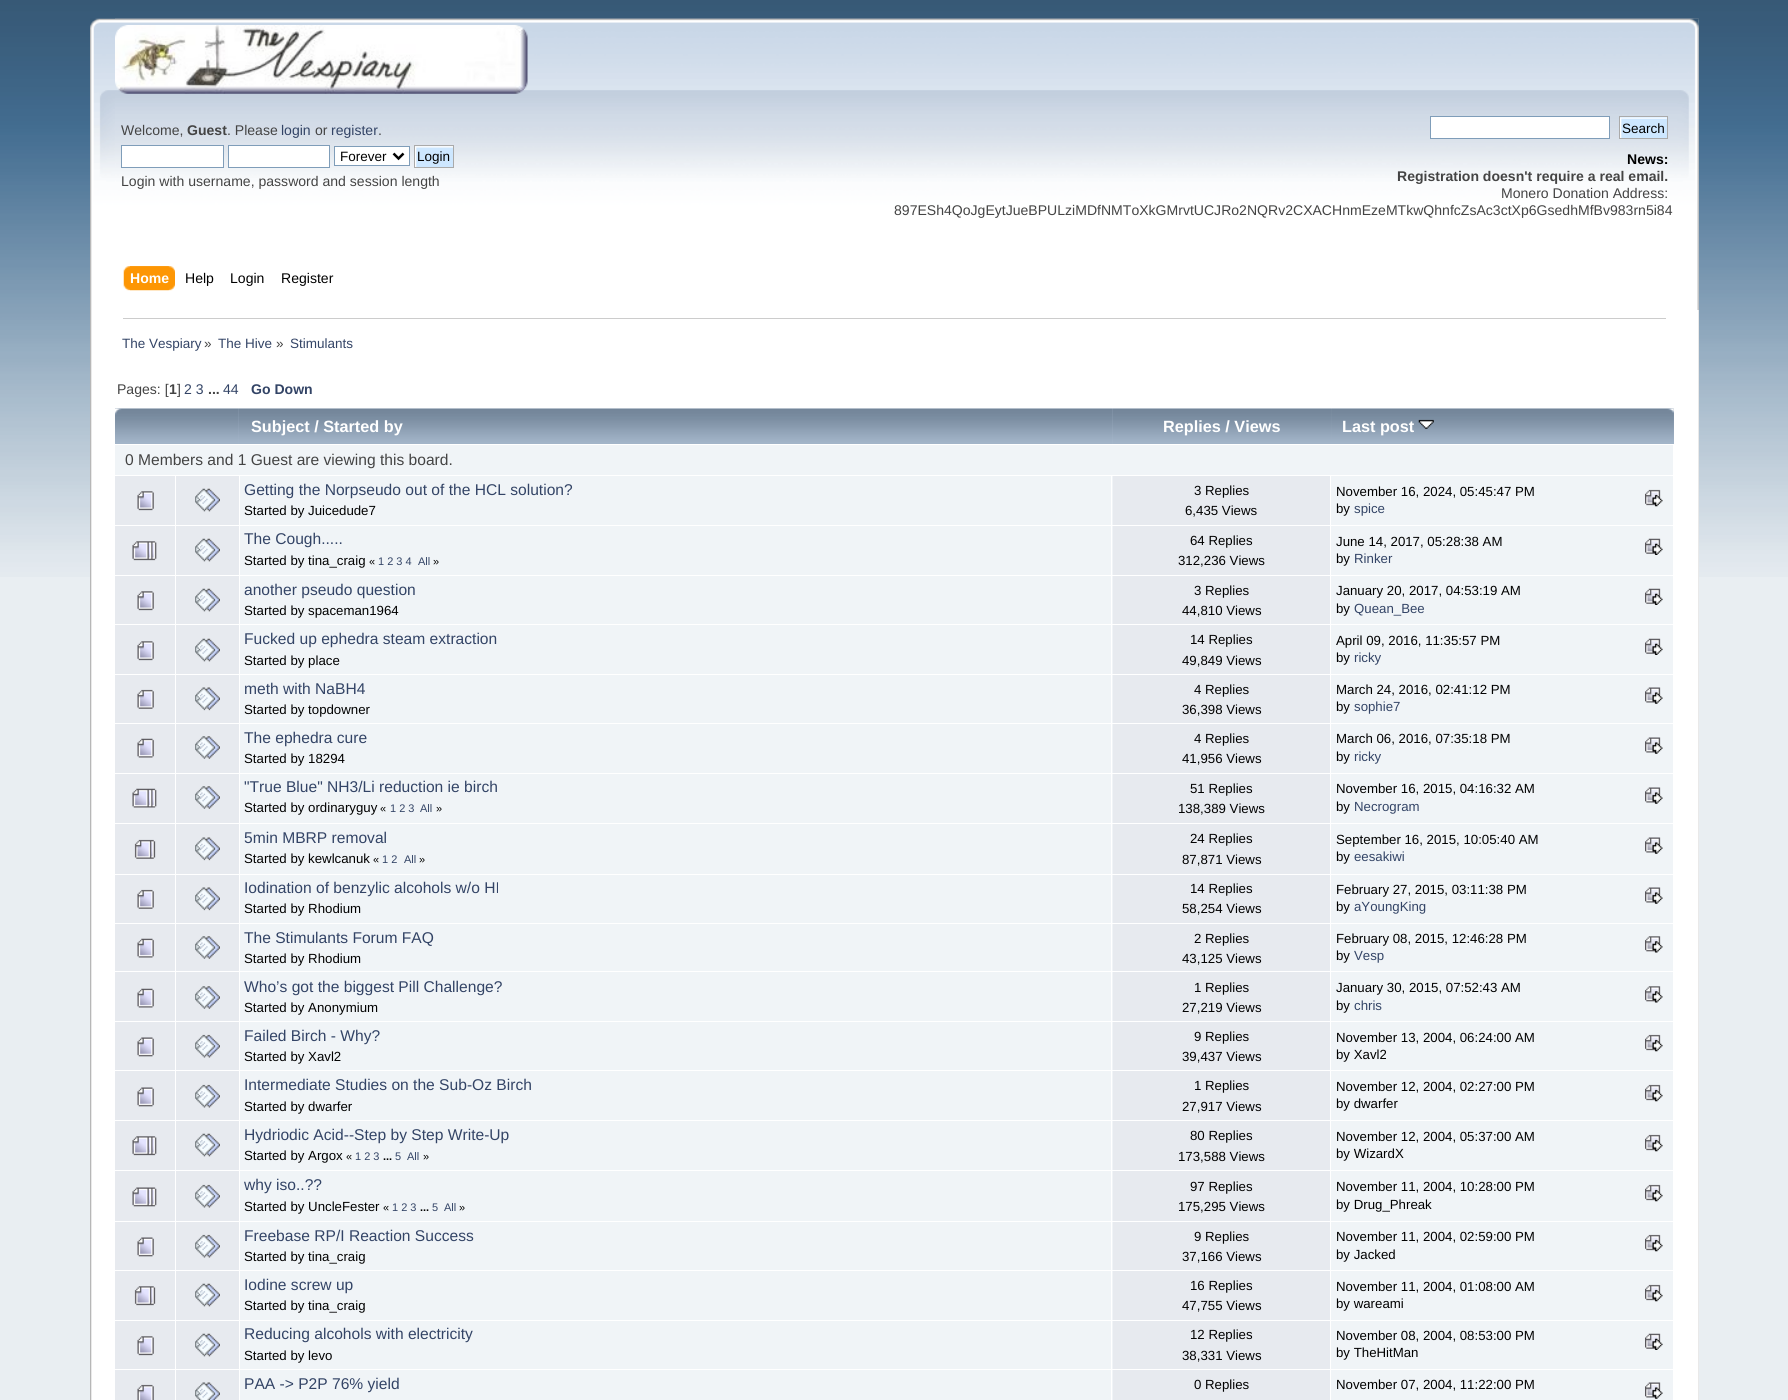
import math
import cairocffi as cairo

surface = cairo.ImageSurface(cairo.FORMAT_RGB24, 1788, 1400)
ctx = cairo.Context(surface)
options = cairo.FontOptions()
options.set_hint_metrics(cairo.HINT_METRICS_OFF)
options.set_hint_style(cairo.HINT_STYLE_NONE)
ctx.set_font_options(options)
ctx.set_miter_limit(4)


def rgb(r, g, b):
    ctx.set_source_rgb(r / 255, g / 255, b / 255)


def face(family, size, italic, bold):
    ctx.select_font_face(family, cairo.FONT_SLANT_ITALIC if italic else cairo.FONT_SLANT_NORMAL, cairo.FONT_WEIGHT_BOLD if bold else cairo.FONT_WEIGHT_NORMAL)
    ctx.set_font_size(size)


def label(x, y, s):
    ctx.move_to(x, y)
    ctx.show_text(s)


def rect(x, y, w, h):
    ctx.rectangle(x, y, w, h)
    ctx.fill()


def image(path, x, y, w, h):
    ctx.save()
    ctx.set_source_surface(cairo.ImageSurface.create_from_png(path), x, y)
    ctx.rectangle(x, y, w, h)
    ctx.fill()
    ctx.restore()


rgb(233, 238, 242)
ctx.paint()
image('image0.png', 0, 0, 1788, 577)
image('image1.png', 90, 18, 1609, 292)
image('image2.png', 115, 18, 1584, 292)
image('image3.png', 115, 25, 413, 69)
face('Liberation Sans', 14.05, 0, 0)
rgb(68, 68, 68)
label(121, 135, 'Welcome,')
face('Liberation Sans', 14.05, 0, 1)
label(187, 135, 'Guest')
face('Liberation Sans', 14.05, 0, 0)
label(227, 135, '. Please')
rgb(51, 68, 102)
label(281, 135, 'login')
rgb(68, 68, 68)
label(315, 135, 'or')
rgb(51, 68, 102)
label(331, 135, 'register')
rgb(68, 68, 68)
label(378, 135, '.')
rgb(255, 255, 255)
ctx.rectangle(121.5, 145.5, 102, 22)
ctx.fill_preserve()
rgb(127, 157, 185)
ctx.set_line_width(1)
ctx.stroke()
rgb(255, 255, 255)
ctx.rectangle(228.5, 145.5, 101, 22)
ctx.fill_preserve()
rgb(127, 157, 185)
ctx.stroke()
rgb(255, 255, 255)
ctx.rectangle(334.5, 146.5, 75, 19)
ctx.fill_preserve()
rgb(127, 157, 185)
ctx.stroke()
ctx.new_path()
ctx.move_to(393.5, 153.5)
ctx.line_to(398.5, 158.5)
ctx.line_to(403.5, 153.5)
rgb(0, 0, 0)
ctx.set_line_width(2.5)
ctx.stroke()
face('Liberation Sans', 13.5, 0, 0)
label(340, 161, 'Forever')
image('image4.png', 415, 146, 38, 21)
ctx.rectangle(414.5, 145.5, 39, 22)
rgb(170, 170, 170)
ctx.set_line_width(1)
ctx.stroke()
rgb(0, 0, 0)
label(417, 161, 'Login')
face('Liberation Sans', 14.05, 0, 0)
rgb(68, 68, 68)
label(121, 186, 'Login with username, password and session length')
rgb(255, 255, 255)
ctx.rectangle(1430.5, 116.5, 179, 22)
ctx.fill_preserve()
rgb(127, 157, 185)
ctx.stroke()
rgb(205, 231, 255)
rect(1620, 117, 47, 1)
image('image5.png', 1620, 117, 47, 21)
ctx.rectangle(1619.5, 116.5, 48, 22)
rgb(170, 170, 170)
ctx.stroke()
face('Liberation Sans', 13.5, 0, 0)
rgb(0, 0, 0)
label(1622, 133, 'Search')
face('Liberation Sans', 14.05, 0, 1)
label(1627, 164, 'News:')
rgb(68, 68, 68)
label(1397, 181, 'Registration doesn\'t require a real email.')
face('Liberation Sans', 14.05, 0, 0)
label(1501, 198, 'Monero Donation Address:')
label(894, 215, '897ESh4QoJgEytJueBPULziMDfNMToXkGMrvtUCJRo2NQRv2CXACHnmEzeMTkwQhnfcZsAc3ctXp6GsedhMfBv983rn5i84')
image('image6.png', 130, 266, 45, 25)
image('image7.png', 123, 266, 46, 25)
face('Liberation Sans', 14.05, 0, 1)
rgb(255, 255, 255)
label(130, 283, 'Home')
face('Liberation Sans', 14.05, 0, 0)
rgb(0, 0, 0)
label(185, 283, 'Help')
label(230, 283, 'Login')
label(281, 283, 'Register')
rgb(255, 255, 255)
rect(92, 310, 1606, 1090)
image('image8.png', 90, 310, 2, 1090)
rgb(233, 233, 233)
rect(1698, 310, 1, 1090)
rgb(204, 204, 204)
rect(123, 318, 1543, 1)
face('Liberation Sans', 13.5, 0, 0)
rgb(51, 68, 102)
label(122, 348, 'The Vespiary')
rgb(68, 68, 68)
label(204, 348, '»')
rgb(51, 68, 102)
label(218, 348, 'The Hive')
rgb(68, 68, 68)
label(276, 348, '»')
rgb(51, 68, 102)
label(290, 348, 'Stimulants')
face('Liberation Sans', 14.05, 0, 0)
rgb(68, 68, 68)
label(117, 394, 'Pages: [')
face('Liberation Sans', 14.05, 0, 1)
label(169, 394, '1')
face('Liberation Sans', 14.05, 0, 0)
label(177, 394, ']')
rgb(51, 68, 102)
label(184, 394, '2 3')
face('Liberation Sans', 14.05, 0, 1)
rgb(68, 68, 68)
label(208, 394, '...')
face('Liberation Sans', 14.05, 0, 0)
rgb(51, 68, 102)
label(223, 394, '44')
face('Liberation Sans', 14.05, 0, 1)
label(251, 394, 'Go Down')
image('image9.png', 115, 408, 124, 36)
image('image10.png', 238, 408, 875, 36)
face('Liberation Sans', 16.25, 0, 1)
rgb(255, 255, 255)
label(251, 432, 'Subject / Started by')
image('image11.png', 1112, 408, 220, 36)
label(1163, 432, 'Replies / Views')
image('image12.png', 1331, 408, 343, 36)
label(1342, 432, 'Last post')
image('image13.png', 1418, 419, 16, 10)
rgb(240, 244, 247)
rect(115, 445, 1558, 30)
face('Liberation Sans', 15.6, 0, 0)
rgb(68, 68, 68)
label(125, 465, '0 Members and 1 Guest are viewing this board.')
rgb(231, 234, 239)
rect(115, 476, 60, 49)
image('image14.png', 137, 491, 17, 20)
rect(176, 476, 63, 49)
image('image15.png', 195, 488, 25, 24)
rgb(240, 244, 247)
rect(240, 476, 873, 49)
rgb(51, 68, 102)
label(244, 495, 'Getting the Norpseudo out of the HCL solution?')
face('Liberation Sans', 13.25, 0, 0)
rgb(0, 0, 0)
label(244, 515, 'Started by Juicedude7')
rgb(231, 234, 239)
rect(1113, 476, 217, 49)
rgb(0, 0, 0)
label(1194, 495, '3 Replies')
label(1185, 515, '6,435 Views')
rgb(240, 244, 247)
rect(1331, 476, 342, 49)
rgb(0, 0, 0)
label(1336, 496, 'November 16, 2024, 05:45:47 PM')
image('image16.png', 1645, 489, 18, 18)
label(1336, 513, 'by')
rgb(51, 68, 102)
label(1354, 513, 'spice')
rgb(231, 234, 239)
rect(115, 526, 60, 49)
image('image17.png', 132, 541, 25, 20)
rect(176, 526, 63, 49)
image('image15.png', 195, 538, 25, 24)
rgb(240, 244, 247)
rect(240, 526, 873, 49)
face('Liberation Sans', 15.6, 0, 0)
rgb(51, 68, 102)
label(244, 544, 'The Cough.....')
face('Liberation Sans', 13.25, 0, 0)
rgb(0, 0, 0)
label(244, 565, 'Started by tina_craig')
face('Liberation Sans', 11, 0, 0)
label(369, 565, '«')
rgb(51, 68, 102)
label(378, 565, '1 2 3 4')
label(418, 565, 'All')
rgb(0, 0, 0)
label(433, 565, '»')
rgb(231, 234, 239)
rect(1113, 526, 217, 49)
face('Liberation Sans', 13.25, 0, 0)
rgb(0, 0, 0)
label(1190, 545, '64 Replies')
label(1178, 565, '312,236 Views')
rgb(240, 244, 247)
rect(1331, 526, 342, 49)
rgb(0, 0, 0)
label(1336, 546, 'June 14, 2017, 05:28:38 AM')
image('image18.png', 1645, 538, 18, 17)
label(1336, 563, 'by')
rgb(51, 68, 102)
label(1354, 563, 'Rinker')
rgb(231, 234, 239)
rect(115, 576, 60, 48)
image('image19.png', 137, 591, 17, 20)
rect(176, 576, 63, 48)
image('image20.png', 195, 588, 25, 24)
rgb(240, 244, 247)
rect(240, 576, 873, 48)
face('Liberation Sans', 15.6, 0, 0)
rgb(51, 68, 102)
label(244, 595, 'another pseudo question')
face('Liberation Sans', 13.25, 0, 0)
rgb(0, 0, 0)
label(244, 615, 'Started by spaceman1964')
rgb(231, 234, 239)
rect(1113, 576, 217, 48)
rgb(0, 0, 0)
label(1194, 595, '3 Replies')
label(1182, 615, '44,810 Views')
rgb(240, 244, 247)
rect(1331, 576, 342, 48)
rgb(0, 0, 0)
label(1336, 595, 'January 20, 2017, 04:53:19 AM')
image('image21.png', 1645, 588, 18, 17)
label(1336, 613, 'by')
rgb(51, 68, 102)
label(1354, 613, 'Quean_Bee')
rgb(231, 234, 239)
rect(115, 625, 60, 49)
image('image14.png', 137, 641, 17, 20)
rect(176, 625, 63, 49)
image('image15.png', 195, 638, 25, 24)
rgb(240, 244, 247)
rect(240, 625, 873, 49)
face('Liberation Sans', 15.6, 0, 0)
rgb(51, 68, 102)
label(244, 644, 'Fucked up ephedra steam extraction')
face('Liberation Sans', 13.25, 0, 0)
rgb(0, 0, 0)
label(244, 665, 'Started by place')
rgb(231, 234, 239)
rect(1113, 625, 217, 49)
rgb(0, 0, 0)
label(1190, 644, '14 Replies')
label(1182, 665, '49,849 Views')
rgb(240, 244, 247)
rect(1331, 625, 342, 49)
rgb(0, 0, 0)
label(1336, 645, 'April 09, 2016, 11:35:57 PM')
image('image18.png', 1645, 638, 18, 17)
label(1336, 662, 'by')
rgb(51, 68, 102)
label(1354, 662, 'ricky')
rgb(231, 234, 239)
rect(115, 675, 60, 48)
image('image22.png', 137, 689, 17, 20)
rect(176, 675, 63, 48)
image('image23.png', 195, 687, 25, 24)
rgb(240, 244, 247)
rect(240, 675, 873, 48)
face('Liberation Sans', 15.6, 0, 0)
rgb(51, 68, 102)
label(244, 694, 'meth with NaBH4')
face('Liberation Sans', 13.25, 0, 0)
rgb(0, 0, 0)
label(244, 714, 'Started by topdowner')
rgb(231, 234, 239)
rect(1113, 675, 217, 48)
rgb(0, 0, 0)
label(1194, 694, '4 Replies')
label(1182, 714, '36,398 Views')
rgb(240, 244, 247)
rect(1331, 675, 342, 48)
rgb(0, 0, 0)
label(1336, 694, 'March 24, 2016, 02:41:12 PM')
image('image24.png', 1645, 687, 18, 17)
label(1336, 711, 'by')
rgb(51, 68, 102)
label(1354, 711, 'sophie7')
rgb(231, 234, 239)
rect(115, 724, 60, 49)
image('image25.png', 137, 738, 17, 20)
rect(176, 724, 63, 49)
image('image26.png', 195, 736, 25, 23)
rgb(240, 244, 247)
rect(240, 724, 873, 49)
face('Liberation Sans', 15.6, 0, 0)
rgb(51, 68, 102)
label(244, 743, 'The ephedra cure')
face('Liberation Sans', 13.25, 0, 0)
rgb(0, 0, 0)
label(244, 763, 'Started by 18294')
rgb(231, 234, 239)
rect(1113, 724, 217, 49)
rgb(0, 0, 0)
label(1194, 743, '4 Replies')
label(1182, 763, '41,956 Views')
rgb(240, 244, 247)
rect(1331, 724, 342, 49)
rgb(0, 0, 0)
label(1336, 743, 'March 06, 2016, 07:35:18 PM')
image('image24.png', 1645, 737, 18, 17)
label(1336, 761, 'by')
rgb(51, 68, 102)
label(1354, 761, 'ricky')
rgb(231, 234, 239)
rect(115, 774, 60, 49)
image('image27.png', 132, 788, 25, 20)
rect(176, 774, 63, 49)
image('image26.png', 195, 786, 25, 23)
rgb(240, 244, 247)
rect(240, 774, 873, 49)
face('Liberation Sans', 15.6, 0, 0)
rgb(51, 68, 102)
label(244, 792, '"True Blue" NH3/Li reduction ie birch')
face('Liberation Sans', 13.25, 0, 0)
rgb(0, 0, 0)
label(244, 812, 'Started by ordinaryguy')
face('Liberation Sans', 11, 0, 0)
label(380, 812, '«')
rgb(51, 68, 102)
label(390, 812, '1 2 3')
label(420, 812, 'All')
rgb(0, 0, 0)
label(436, 812, '»')
rgb(231, 234, 239)
rect(1113, 774, 217, 49)
face('Liberation Sans', 13.25, 0, 0)
rgb(0, 0, 0)
label(1190, 793, '51 Replies')
label(1178, 813, '138,389 Views')
rgb(240, 244, 247)
rect(1331, 774, 342, 49)
rgb(0, 0, 0)
label(1336, 793, 'November 16, 2015, 04:16:32 AM')
image('image24.png', 1645, 787, 18, 17)
label(1336, 811, 'by')
rgb(51, 68, 102)
label(1354, 811, 'Necrogram')
rgb(231, 234, 239)
rect(115, 824, 60, 50)
image('image28.png', 134, 839, 22, 20)
rect(176, 824, 63, 50)
image('image23.png', 195, 837, 25, 24)
rgb(240, 244, 247)
rect(240, 824, 873, 50)
face('Liberation Sans', 15.6, 0, 0)
rgb(51, 68, 102)
label(244, 843, '5min MBRP removal')
face('Liberation Sans', 13.25, 0, 0)
rgb(0, 0, 0)
label(244, 863, 'Started by kewlcanuk')
face('Liberation Sans', 11, 0, 0)
label(373, 863, '«')
rgb(51, 68, 102)
label(382, 863, '1 2')
label(404, 863, 'All')
rgb(0, 0, 0)
label(419, 863, '»')
rgb(231, 234, 239)
rect(1113, 824, 217, 50)
face('Liberation Sans', 13.25, 0, 0)
rgb(0, 0, 0)
label(1190, 843, '24 Replies')
label(1182, 864, '87,871 Views')
rgb(240, 244, 247)
rect(1331, 824, 342, 50)
rgb(0, 0, 0)
label(1336, 844, 'September 16, 2015, 10:05:40 AM')
image('image24.png', 1645, 837, 18, 17)
label(1336, 861, 'by')
rgb(51, 68, 102)
label(1354, 861, 'eesakiwi')
rgb(231, 234, 239)
rect(115, 875, 60, 48)
image('image22.png', 137, 889, 17, 20)
rect(176, 875, 63, 48)
image('image23.png', 195, 887, 25, 24)
rgb(240, 244, 247)
rect(240, 875, 873, 48)
face('Liberation Sans', 15.6, 0, 0)
rgb(51, 68, 102)
label(244, 893, 'Iodination of benzylic alcohols w/o HI')
face('Liberation Sans', 13.25, 0, 0)
rgb(0, 0, 0)
label(244, 913, 'Started by Rhodium')
rgb(231, 234, 239)
rect(1113, 875, 217, 48)
rgb(0, 0, 0)
label(1190, 893, '14 Replies')
label(1182, 913, '58,254 Views')
rgb(240, 244, 247)
rect(1331, 875, 342, 48)
rgb(0, 0, 0)
label(1336, 894, 'February 27, 2015, 03:11:38 PM')
image('image24.png', 1645, 887, 18, 17)
label(1336, 911, 'by')
rgb(51, 68, 102)
label(1354, 911, 'aYoungKing')
rgb(231, 234, 239)
rect(115, 924, 60, 97)
image('image25.png', 137, 938, 17, 20)
rect(176, 924, 63, 97)
image('image26.png', 195, 936, 25, 23)
rgb(240, 244, 247)
rect(240, 924, 873, 97)
rgb(231, 234, 239)
rect(1113, 924, 217, 97)
rgb(240, 244, 247)
rect(1331, 924, 342, 97)
rect(240, 1022, 873, 48)
rect(240, 1071, 873, 49)
rect(240, 1121, 873, 49)
rect(240, 1171, 873, 50)
rect(240, 1222, 873, 48)
rect(240, 1271, 873, 49)
rect(240, 1321, 873, 48)
rect(240, 1370, 873, 30)
rgb(255, 255, 255)
rect(1111, 971, 1, 429)
rect(1111, 971, 563, 1)
rect(1111, 475, 1, 498)
rect(114, 971, 999, 1)
face('Liberation Sans', 15.6, 0, 0)
rgb(51, 68, 102)
label(244, 943, 'The Stimulants Forum FAQ')
face('Liberation Sans', 13.25, 0, 0)
rgb(0, 0, 0)
label(244, 963, 'Started by Rhodium')
label(1194, 943, '2 Replies')
label(1182, 963, '43,125 Views')
label(1336, 943, 'February 08, 2015, 12:46:28 PM')
image('image29.png', 1645, 936, 18, 17)
label(1336, 960, 'by')
rgb(51, 68, 102)
label(1354, 960, 'Vesp')
image('image25.png', 137, 988, 17, 20)
image('image26.png', 195, 986, 25, 23)
face('Liberation Sans', 15.6, 0, 0)
label(244, 992, 'Who’s got the biggest Pill Challenge?')
face('Liberation Sans', 13.25, 0, 0)
rgb(0, 0, 0)
label(244, 1012, 'Started by Anonymium')
label(1194, 992, '1 Replies')
label(1182, 1012, '27,219 Views')
label(1336, 992, 'January 30, 2015, 07:52:43 AM')
image('image29.png', 1645, 986, 18, 17)
label(1336, 1010, 'by')
rgb(51, 68, 102)
label(1354, 1010, 'chris')
rgb(231, 234, 239)
rect(115, 1022, 60, 48)
image('image30.png', 137, 1037, 17, 20)
rect(176, 1022, 63, 48)
image('image31.png', 195, 1034, 25, 24)
face('Liberation Sans', 15.6, 0, 0)
rgb(51, 68, 102)
label(244, 1041, 'Failed Birch - Why?')
face('Liberation Sans', 13.25, 0, 0)
rgb(0, 0, 0)
label(244, 1061, 'Started by Xavl2')
rgb(231, 234, 239)
rect(1113, 1022, 217, 48)
rgb(0, 0, 0)
label(1194, 1041, '9 Replies')
label(1182, 1061, '39,437 Views')
rgb(240, 244, 247)
rect(1331, 1022, 342, 48)
rgb(0, 0, 0)
label(1336, 1042, 'November 13, 2004, 06:24:00 AM')
image('image16.png', 1645, 1034, 18, 18)
label(1336, 1059, 'by Xavl2')
rgb(231, 234, 239)
rect(115, 1071, 60, 49)
image('image30.png', 137, 1087, 17, 20)
rect(176, 1071, 63, 49)
image('image31.png', 195, 1084, 25, 24)
face('Liberation Sans', 15.6, 0, 0)
rgb(51, 68, 102)
label(244, 1090, 'Intermediate Studies on the Sub-Oz Birch')
face('Liberation Sans', 13.25, 0, 0)
rgb(0, 0, 0)
label(244, 1111, 'Started by dwarfer')
rgb(231, 234, 239)
rect(1113, 1071, 217, 49)
rgb(0, 0, 0)
label(1194, 1090, '1 Replies')
label(1182, 1111, '27,917 Views')
rgb(240, 244, 247)
rect(1331, 1071, 342, 49)
rgb(0, 0, 0)
label(1336, 1091, 'November 12, 2004, 02:27:00 PM')
image('image16.png', 1645, 1084, 18, 18)
label(1336, 1108, 'by dwarfer')
rgb(231, 234, 239)
rect(115, 1121, 60, 49)
image('image17.png', 132, 1136, 25, 20)
rect(176, 1121, 63, 49)
image('image15.png', 195, 1133, 25, 24)
face('Liberation Sans', 15.6, 0, 0)
rgb(51, 68, 102)
label(244, 1140, 'Hydriodic Acid--Step by Step Write-Up')
face('Liberation Sans', 13.25, 0, 0)
rgb(0, 0, 0)
label(244, 1160, 'Started by Argox')
face('Liberation Sans', 11, 0, 0)
label(346, 1160, '«')
rgb(51, 68, 102)
label(355, 1160, '1 2 3')
face('Liberation Sans', 11, 0, 1)
rgb(0, 0, 0)
label(383, 1160, '...')
face('Liberation Sans', 11, 0, 0)
rgb(51, 68, 102)
label(395, 1160, '5')
label(407, 1160, 'All')
rgb(0, 0, 0)
label(423, 1160, '»')
rgb(231, 234, 239)
rect(1113, 1121, 217, 49)
face('Liberation Sans', 13.25, 0, 0)
rgb(0, 0, 0)
label(1190, 1140, '80 Replies')
label(1178, 1161, '173,588 Views')
rgb(240, 244, 247)
rect(1331, 1121, 342, 49)
rgb(0, 0, 0)
label(1336, 1141, 'November 12, 2004, 05:37:00 AM')
image('image16.png', 1645, 1134, 18, 18)
label(1336, 1158, 'by WizardX')
rgb(231, 234, 239)
rect(115, 1171, 60, 50)
image('image32.png', 132, 1187, 25, 20)
rect(176, 1171, 63, 50)
image('image31.png', 195, 1184, 25, 24)
face('Liberation Sans', 15.6, 0, 0)
rgb(51, 68, 102)
label(244, 1190, 'why iso..??')
face('Liberation Sans', 13.25, 0, 0)
rgb(0, 0, 0)
label(244, 1211, 'Started by UncleFester')
face('Liberation Sans', 11, 0, 0)
label(383, 1211, '«')
rgb(51, 68, 102)
label(392, 1211, '1 2 3')
face('Liberation Sans', 11, 0, 1)
rgb(0, 0, 0)
label(420, 1211, '...')
face('Liberation Sans', 11, 0, 0)
rgb(51, 68, 102)
label(432, 1211, '5')
label(444, 1211, 'All')
rgb(0, 0, 0)
label(459, 1211, '»')
rgb(231, 234, 239)
rect(1113, 1171, 217, 50)
face('Liberation Sans', 13.25, 0, 0)
rgb(0, 0, 0)
label(1190, 1191, '97 Replies')
label(1178, 1211, '175,295 Views')
rgb(240, 244, 247)
rect(1331, 1171, 342, 50)
rgb(0, 0, 0)
label(1336, 1191, 'November 11, 2004, 10:28:00 PM')
image('image16.png', 1645, 1184, 18, 18)
label(1336, 1209, 'by Drug_Phreak')
rgb(231, 234, 239)
rect(115, 1222, 60, 48)
image('image30.png', 137, 1237, 17, 20)
rect(176, 1222, 63, 48)
image('image31.png', 195, 1234, 25, 24)
face('Liberation Sans', 15.6, 0, 0)
rgb(51, 68, 102)
label(244, 1241, 'Freebase RP/I Reaction Success')
face('Liberation Sans', 13.25, 0, 0)
rgb(0, 0, 0)
label(244, 1261, 'Started by tina_craig')
rgb(231, 234, 239)
rect(1113, 1222, 217, 48)
rgb(0, 0, 0)
label(1194, 1241, '9 Replies')
label(1182, 1261, '37,166 Views')
rgb(240, 244, 247)
rect(1331, 1222, 342, 48)
rgb(0, 0, 0)
label(1336, 1241, 'November 11, 2004, 02:59:00 PM')
image('image16.png', 1645, 1234, 18, 18)
label(1336, 1259, 'by Jacked')
rgb(231, 234, 239)
rect(115, 1271, 60, 49)
image('image33.png', 134, 1286, 22, 20)
rect(176, 1271, 63, 49)
image('image15.png', 195, 1283, 25, 24)
face('Liberation Sans', 15.6, 0, 0)
rgb(51, 68, 102)
label(244, 1290, 'Iodine screw up')
face('Liberation Sans', 13.25, 0, 0)
rgb(0, 0, 0)
label(244, 1310, 'Started by tina_craig')
rgb(231, 234, 239)
rect(1113, 1271, 217, 49)
rgb(0, 0, 0)
label(1190, 1290, '16 Replies')
label(1182, 1310, '47,755 Views')
rgb(240, 244, 247)
rect(1331, 1271, 342, 49)
rgb(0, 0, 0)
label(1336, 1291, 'November 11, 2004, 01:08:00 AM')
image('image16.png', 1645, 1284, 18, 18)
label(1336, 1308, 'by wareami')
rgb(231, 234, 239)
rect(115, 1321, 60, 48)
image('image14.png', 137, 1336, 17, 20)
rect(176, 1321, 63, 48)
image('image15.png', 195, 1333, 25, 24)
face('Liberation Sans', 15.6, 0, 0)
rgb(51, 68, 102)
label(244, 1339, 'Reducing alcohols with electricity')
face('Liberation Sans', 13.25, 0, 0)
rgb(0, 0, 0)
label(244, 1360, 'Started by levo')
rgb(231, 234, 239)
rect(1113, 1321, 217, 48)
rgb(0, 0, 0)
label(1190, 1339, '12 Replies')
label(1182, 1360, '38,331 Views')
rgb(240, 244, 247)
rect(1331, 1321, 342, 48)
rgb(0, 0, 0)
label(1336, 1340, 'November 08, 2004, 08:53:00 PM')
image('image18.png', 1645, 1333, 18, 17)
label(1336, 1357, 'by TheHitMan')
rgb(231, 234, 239)
rect(115, 1370, 60, 30)
image('image34.png', 137, 1384, 17, 16)
rect(176, 1370, 63, 30)
image('image35.png', 195, 1382, 25, 18)
face('Liberation Sans', 15.6, 0, 0)
rgb(51, 68, 102)
label(244, 1389, 'PAA -> P2P 76% yield')
rgb(231, 234, 239)
rect(1113, 1370, 217, 30)
face('Liberation Sans', 13.25, 0, 0)
rgb(0, 0, 0)
label(1194, 1389, '0 Replies')
rgb(240, 244, 247)
rect(1331, 1370, 342, 30)
rgb(0, 0, 0)
label(1336, 1389, 'November 07, 2004, 11:22:00 PM')
image('image24.png', 1645, 1382, 18, 17)
surface.write_to_png('render.png')
